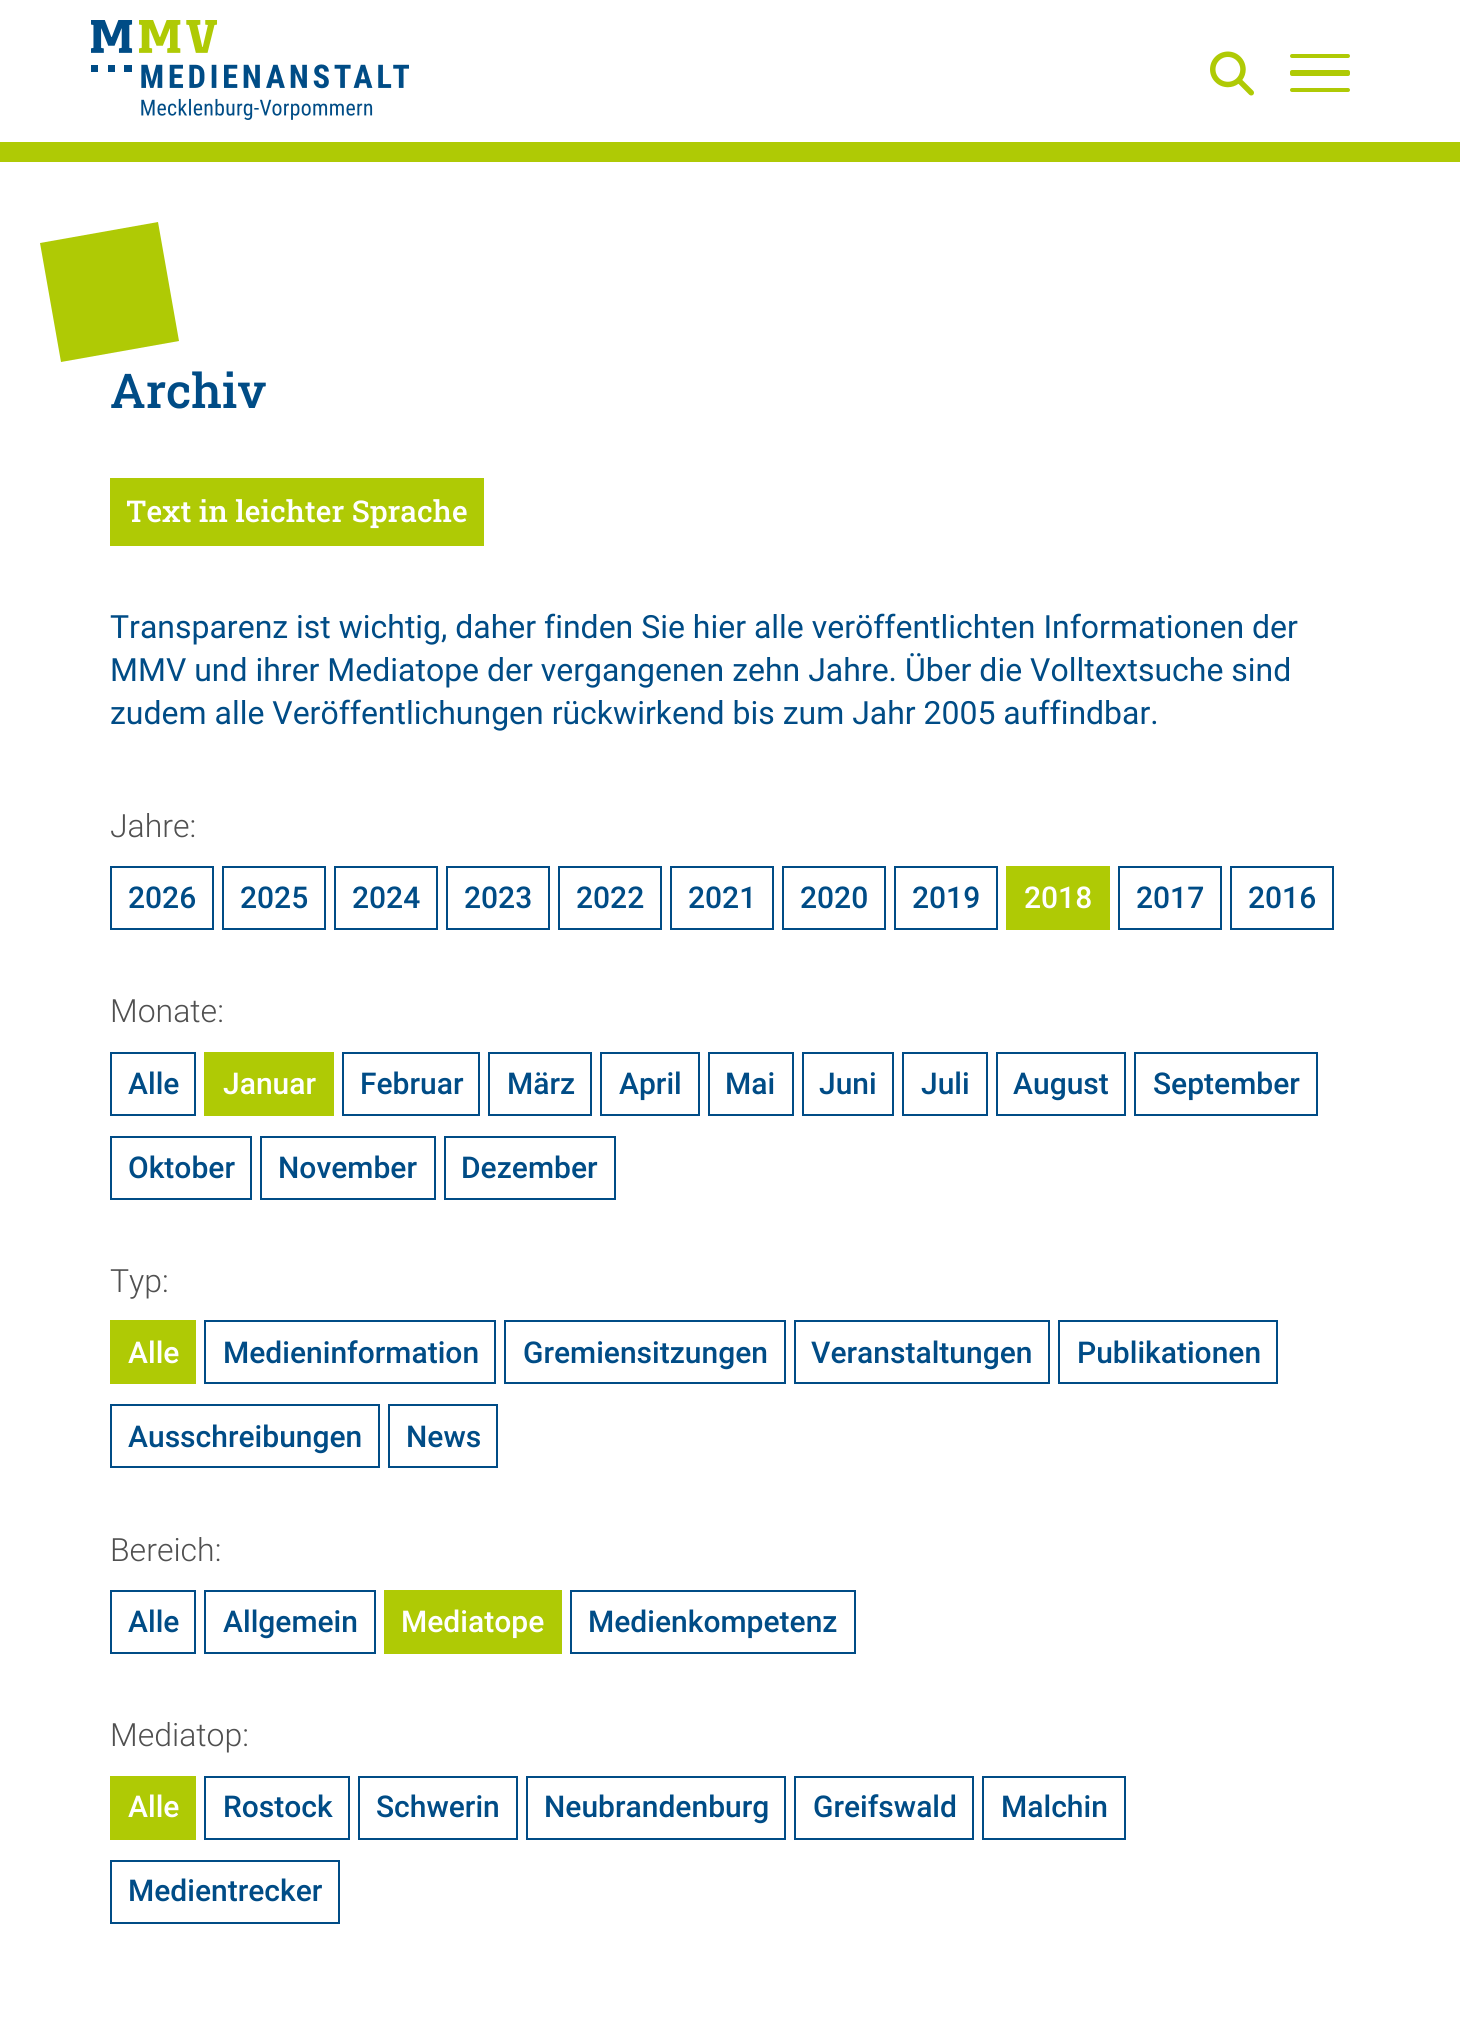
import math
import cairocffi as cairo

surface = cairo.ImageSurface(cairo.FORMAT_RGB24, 1460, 2031)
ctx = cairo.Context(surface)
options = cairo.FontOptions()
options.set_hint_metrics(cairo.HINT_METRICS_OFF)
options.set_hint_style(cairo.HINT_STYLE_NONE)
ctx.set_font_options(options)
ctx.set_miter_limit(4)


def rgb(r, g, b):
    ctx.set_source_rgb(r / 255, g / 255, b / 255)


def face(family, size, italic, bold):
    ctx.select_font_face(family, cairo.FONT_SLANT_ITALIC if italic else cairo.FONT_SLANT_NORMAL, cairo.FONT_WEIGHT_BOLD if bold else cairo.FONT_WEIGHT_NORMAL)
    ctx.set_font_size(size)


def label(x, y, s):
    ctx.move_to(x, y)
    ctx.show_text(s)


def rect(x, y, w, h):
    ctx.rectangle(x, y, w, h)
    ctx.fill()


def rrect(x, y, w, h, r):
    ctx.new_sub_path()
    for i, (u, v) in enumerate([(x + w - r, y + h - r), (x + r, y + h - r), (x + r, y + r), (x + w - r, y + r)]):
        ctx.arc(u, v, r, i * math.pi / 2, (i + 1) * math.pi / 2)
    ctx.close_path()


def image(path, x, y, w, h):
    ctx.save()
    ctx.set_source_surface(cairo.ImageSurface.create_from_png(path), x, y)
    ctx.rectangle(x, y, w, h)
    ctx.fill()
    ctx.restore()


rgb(255, 255, 255)
ctx.paint()
rgb(175, 202, 5)
rect(0, 142, 1460, 20)
image('image0.png', 91, 20, 318, 100)
image('image1.png', 1210, 51, 44, 45)
rrect(1290, 54, 60, 4, 2)
ctx.fill()
rrect(1290, 70, 60, 6, 2)
ctx.fill()
rrect(1290, 88, 60, 4, 2)
ctx.fill()
ctx.new_path()
ctx.move_to(40, 243)
ctx.line_to(158, 222)
ctx.line_to(179, 341)
ctx.line_to(61, 362)
ctx.close_path()
ctx.fill()
face('Roboto Slab Medium', 48, 0, 0)
rgb(0, 76, 134)
label(110, 408, 'Archiv')
rgb(175, 202, 5)
rect(110, 478, 374, 68)
face('Roboto Slab Medium', 30, 0, 0)
rgb(255, 255, 255)
label(126, 522, 'Text in leichter Sprache')
face('Roboto', 32, 0, 0)
rgb(0, 76, 134)
label(110, 638, 'Transparenz ist wichtig, daher finden Sie hier alle veröffentlichten Informationen der')
label(110, 681, 'MMV und ihrer Mediatope der vergangenen zehn Jahre. Über die Volltextsuche sind')
label(110, 724, 'zudem alle Veröffentlichungen rückwirkend bis zum Jahr 2005 auffindbar.')
face('Roboto Light', 32, 0, 0)
rgb(80, 80, 80)
label(110, 837, 'Jahre:')
ctx.rectangle(111, 867, 102, 62)
rgb(0, 76, 134)
ctx.stroke()
face('Roboto Medium', 30, 0, 0)
label(128, 908, '2026')
ctx.rectangle(223, 867, 102, 62)
ctx.stroke()
label(240, 908, '2025')
ctx.rectangle(335, 867, 102, 62)
ctx.stroke()
label(352, 908, '2024')
ctx.rectangle(447, 867, 102, 62)
ctx.stroke()
label(464, 908, '2023')
ctx.rectangle(559, 867, 102, 62)
ctx.stroke()
label(576, 908, '2022')
ctx.rectangle(671, 867, 102, 62)
ctx.stroke()
label(688, 908, '2021')
ctx.rectangle(783, 867, 102, 62)
ctx.stroke()
label(800, 908, '2020')
ctx.rectangle(895, 867, 102, 62)
ctx.stroke()
label(912, 908, '2019')
rgb(175, 202, 5)
rect(1006, 866, 104, 64)
rgb(255, 255, 255)
label(1024, 908, '2018')
ctx.rectangle(1119, 867, 102, 62)
rgb(0, 76, 134)
ctx.stroke()
label(1136, 908, '2017')
ctx.rectangle(1231, 867, 102, 62)
ctx.stroke()
label(1248, 908, '2016')
face('Roboto Light', 32, 0, 0)
rgb(80, 80, 80)
label(110, 1022, 'Monate:')
ctx.rectangle(111, 1053, 84, 62)
rgb(0, 76, 134)
ctx.stroke()
face('Roboto Medium', 30, 0, 0)
label(128, 1094, 'Alle')
rgb(175, 202, 5)
rect(204, 1052, 130, 64)
rgb(255, 255, 255)
label(223, 1094, 'Januar')
ctx.rectangle(343, 1053, 136, 62)
rgb(0, 76, 134)
ctx.stroke()
label(360, 1094, 'Februar')
ctx.rectangle(489, 1053, 102, 62)
ctx.stroke()
label(507, 1094, 'März')
ctx.rectangle(601, 1053, 98, 62)
ctx.stroke()
label(619, 1094, 'April')
ctx.rectangle(709, 1053, 84, 62)
ctx.stroke()
label(725, 1094, 'Mai')
ctx.rectangle(803, 1053, 90, 62)
ctx.stroke()
label(819, 1094, 'Juni')
ctx.rectangle(903, 1053, 84, 62)
ctx.stroke()
label(921, 1094, 'Juli')
ctx.rectangle(997, 1053, 128, 62)
ctx.stroke()
label(1013, 1094, 'August')
ctx.rectangle(1135, 1053, 182, 62)
ctx.stroke()
label(1153, 1094, 'September')
ctx.rectangle(111, 1137, 140, 62)
ctx.stroke()
label(128, 1178, 'Oktober')
ctx.rectangle(261, 1137, 174, 62)
ctx.stroke()
label(278, 1178, 'November')
ctx.rectangle(445, 1137, 170, 62)
ctx.stroke()
label(461, 1178, 'Dezember')
face('Roboto Light', 32, 0, 0)
rgb(80, 80, 80)
label(110, 1292, 'Typ:')
rgb(175, 202, 5)
rect(110, 1320, 86, 64)
face('Roboto Medium', 30, 0, 0)
rgb(255, 255, 255)
label(128, 1363, 'Alle')
ctx.rectangle(205, 1321, 290, 62)
rgb(0, 76, 134)
ctx.stroke()
label(223, 1363, 'Medieninformation')
ctx.rectangle(505, 1321, 280, 62)
ctx.stroke()
label(523, 1363, 'Gremiensitzungen')
ctx.rectangle(795, 1321, 254, 62)
ctx.stroke()
label(811, 1363, 'Veranstaltungen')
ctx.rectangle(1059, 1321, 218, 62)
ctx.stroke()
label(1077, 1363, 'Publikationen')
ctx.rectangle(111, 1405, 268, 62)
ctx.stroke()
label(128, 1447, 'Ausschreibungen')
ctx.rectangle(389, 1405, 108, 62)
ctx.stroke()
label(406, 1447, 'News')
face('Roboto Light', 32, 0, 0)
rgb(80, 80, 80)
label(110, 1561, 'Bereich:')
ctx.rectangle(111, 1591, 84, 62)
rgb(0, 76, 134)
ctx.stroke()
face('Roboto Medium', 30, 0, 0)
label(128, 1632, 'Alle')
ctx.rectangle(205, 1591, 170, 62)
ctx.stroke()
label(223, 1632, 'Allgemein')
rgb(175, 202, 5)
rect(384, 1590, 178, 64)
rgb(255, 255, 255)
label(401, 1632, 'Mediatope')
ctx.rectangle(571, 1591, 284, 62)
rgb(0, 76, 134)
ctx.stroke()
label(588, 1632, 'Medienkompetenz')
face('Roboto Light', 32, 0, 0)
rgb(80, 80, 80)
label(110, 1746, 'Mediatop:')
rgb(175, 202, 5)
rect(110, 1776, 86, 64)
face('Roboto Medium', 30, 0, 0)
rgb(255, 255, 255)
label(128, 1817, 'Alle')
ctx.rectangle(205, 1777, 144, 62)
rgb(0, 76, 134)
ctx.stroke()
label(223, 1817, 'Rostock')
ctx.rectangle(359, 1777, 158, 62)
ctx.stroke()
label(376, 1817, 'Schwerin')
ctx.rectangle(527, 1777, 258, 62)
ctx.stroke()
label(544, 1817, 'Neubrandenburg')
ctx.rectangle(795, 1777, 178, 62)
ctx.stroke()
label(813, 1817, 'Greifswald')
ctx.rectangle(983, 1777, 142, 62)
ctx.stroke()
label(1001, 1817, 'Malchin')
ctx.rectangle(111, 1861, 228, 62)
ctx.stroke()
label(128, 1901, 'Medientrecker')
surface.write_to_png('render.png')
